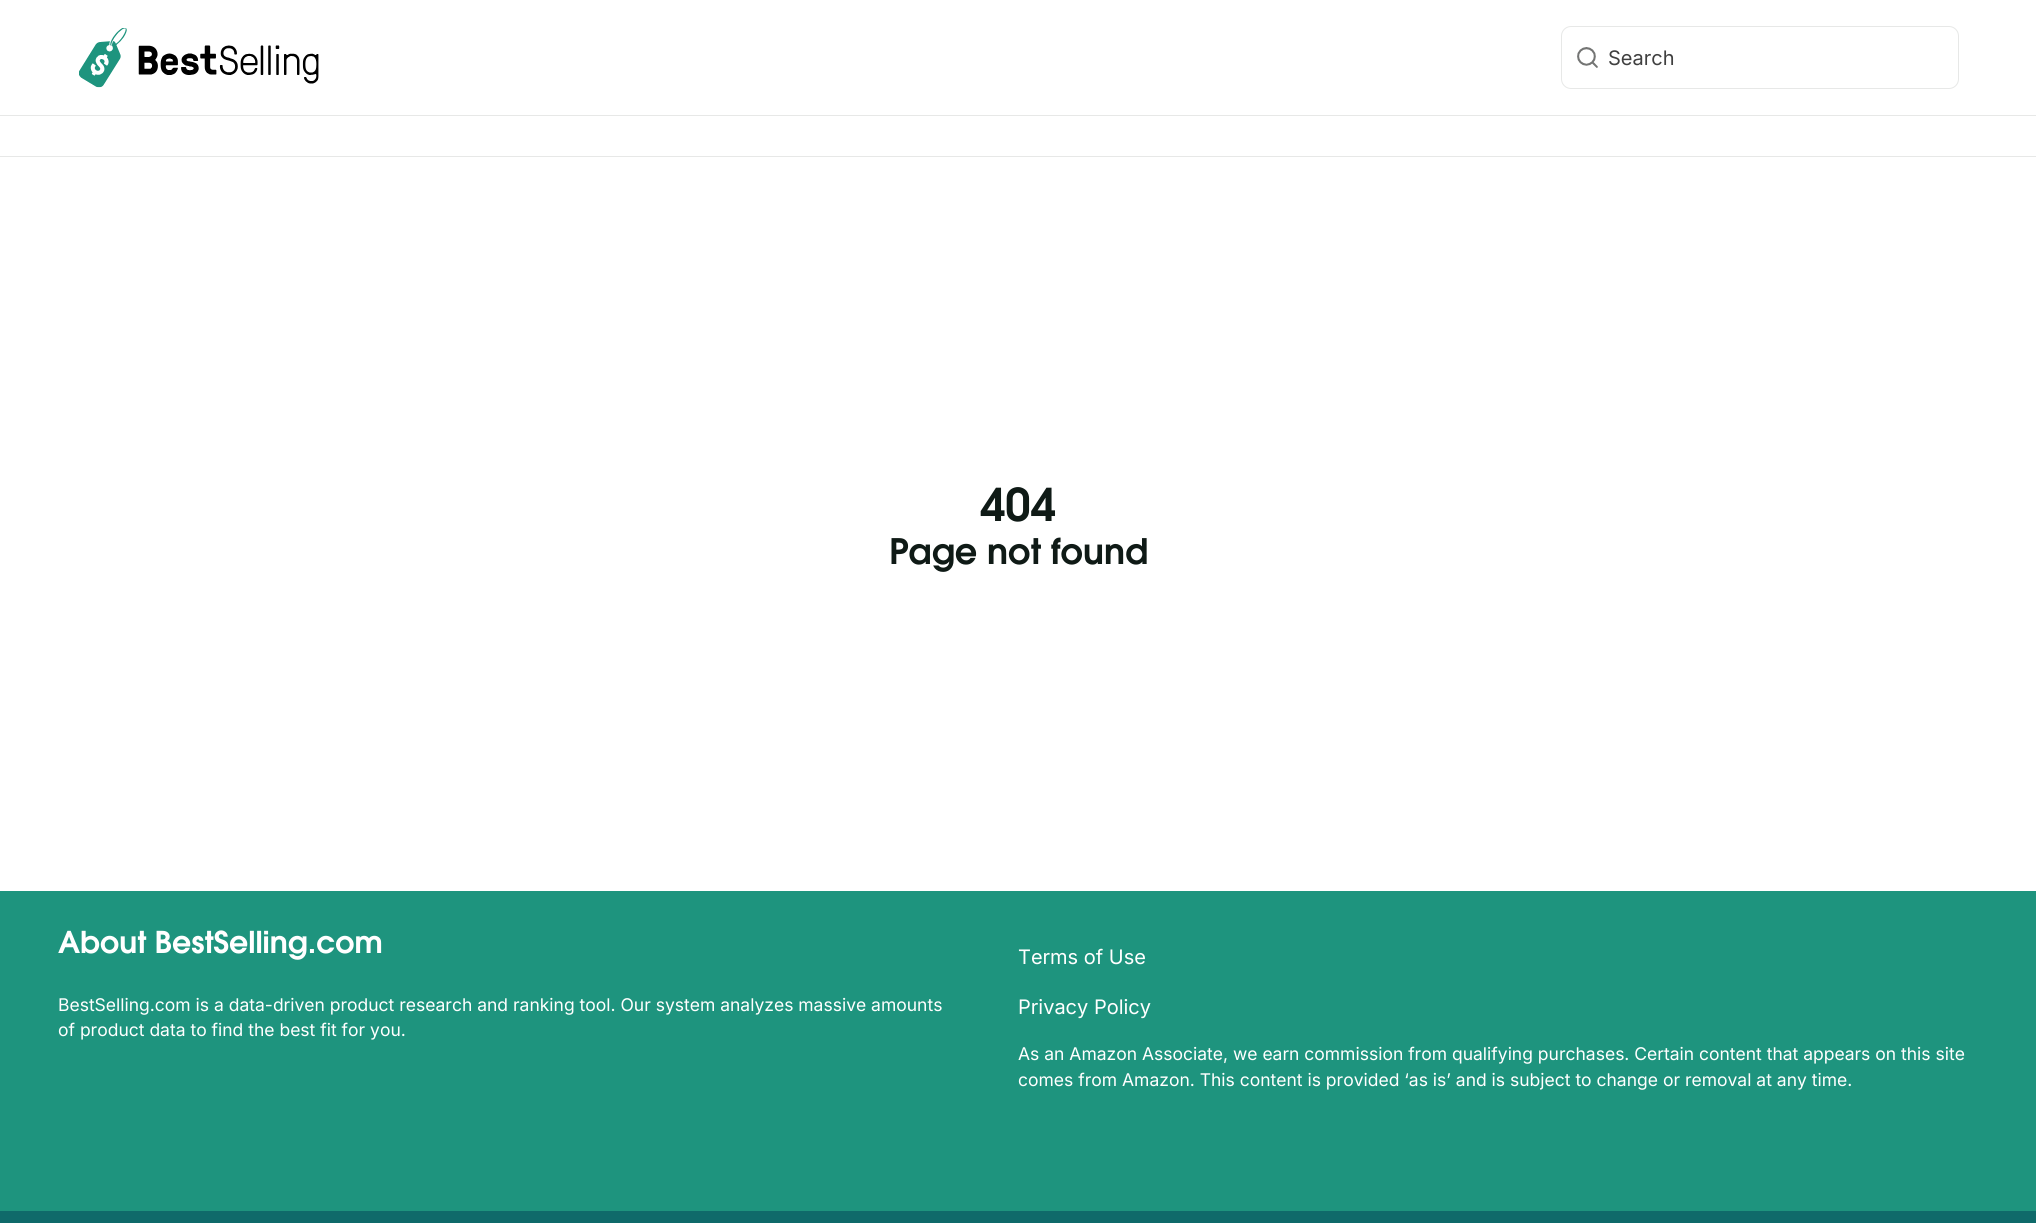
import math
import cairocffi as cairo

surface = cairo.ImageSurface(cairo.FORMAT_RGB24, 2036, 1223)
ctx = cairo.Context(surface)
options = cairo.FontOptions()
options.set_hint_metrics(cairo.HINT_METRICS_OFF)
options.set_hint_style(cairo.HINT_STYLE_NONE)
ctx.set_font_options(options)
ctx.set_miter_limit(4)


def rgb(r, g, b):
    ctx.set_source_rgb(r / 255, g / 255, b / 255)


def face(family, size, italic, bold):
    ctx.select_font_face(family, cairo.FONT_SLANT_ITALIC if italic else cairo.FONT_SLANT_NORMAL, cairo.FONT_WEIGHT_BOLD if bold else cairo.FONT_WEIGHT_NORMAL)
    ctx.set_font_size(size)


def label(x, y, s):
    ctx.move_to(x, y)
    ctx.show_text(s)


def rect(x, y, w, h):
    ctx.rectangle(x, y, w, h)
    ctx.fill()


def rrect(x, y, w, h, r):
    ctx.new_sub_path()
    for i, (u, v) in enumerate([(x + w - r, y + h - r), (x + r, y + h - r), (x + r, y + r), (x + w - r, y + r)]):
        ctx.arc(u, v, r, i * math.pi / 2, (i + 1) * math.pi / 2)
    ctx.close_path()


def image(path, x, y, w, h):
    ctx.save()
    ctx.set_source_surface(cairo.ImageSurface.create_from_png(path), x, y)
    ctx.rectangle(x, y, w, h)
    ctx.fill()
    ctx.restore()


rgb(255, 255, 255)
ctx.paint()
image('image0.png', 79, 28, 240, 60)
rrect(1561.5, 26.5, 397, 62, 9.5)
rgb(231, 232, 231)
ctx.set_line_width(1)
ctx.stroke()
image('image1.png', 1577, 47, 21, 21)
face('Inter', 20, 0, 0)
rgb(64, 64, 64)
label(1608, 65, 'Search')
rgb(231, 232, 231)
rect(0, 115, 2036, 1)
rect(0, 156, 2036, 1)
face('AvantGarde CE', 45, 0, 1)
rgb(15, 26, 22)
label(980, 521, '404')
face('AvantGarde CE', 35, 0, 1)
label(889, 564, 'Page not found')
rgb(30, 148, 126)
rect(0, 891, 2036, 320)
face('AvantGarde CE', 30, 0, 1)
rgb(255, 255, 255)
label(58, 953, 'About BestSelling.com')
face('Inter', 17.5, 0, 0)
label(58, 1011, 'BestSelling.com is a data-driven product research and ranking tool. Our system analyzes massive amounts')
label(58, 1036, 'of product data to find the best fit for you.')
face('Inter', 20, 0, 0)
label(1018, 964, 'Terms of Use')
label(1018, 1014, 'Privacy Policy')
face('Inter', 17.5, 0, 0)
label(1018, 1060, 'As an Amazon Associate, we earn commission from qualifying purchases. Certain content that appears on this site')
label(1018, 1086, 'comes from Amazon. This content is provided ‘as is’ and is subject to change or removal at any time.')
rgb(15, 106, 106)
rect(0, 1211, 2036, 12)
surface.write_to_png('render.png')
